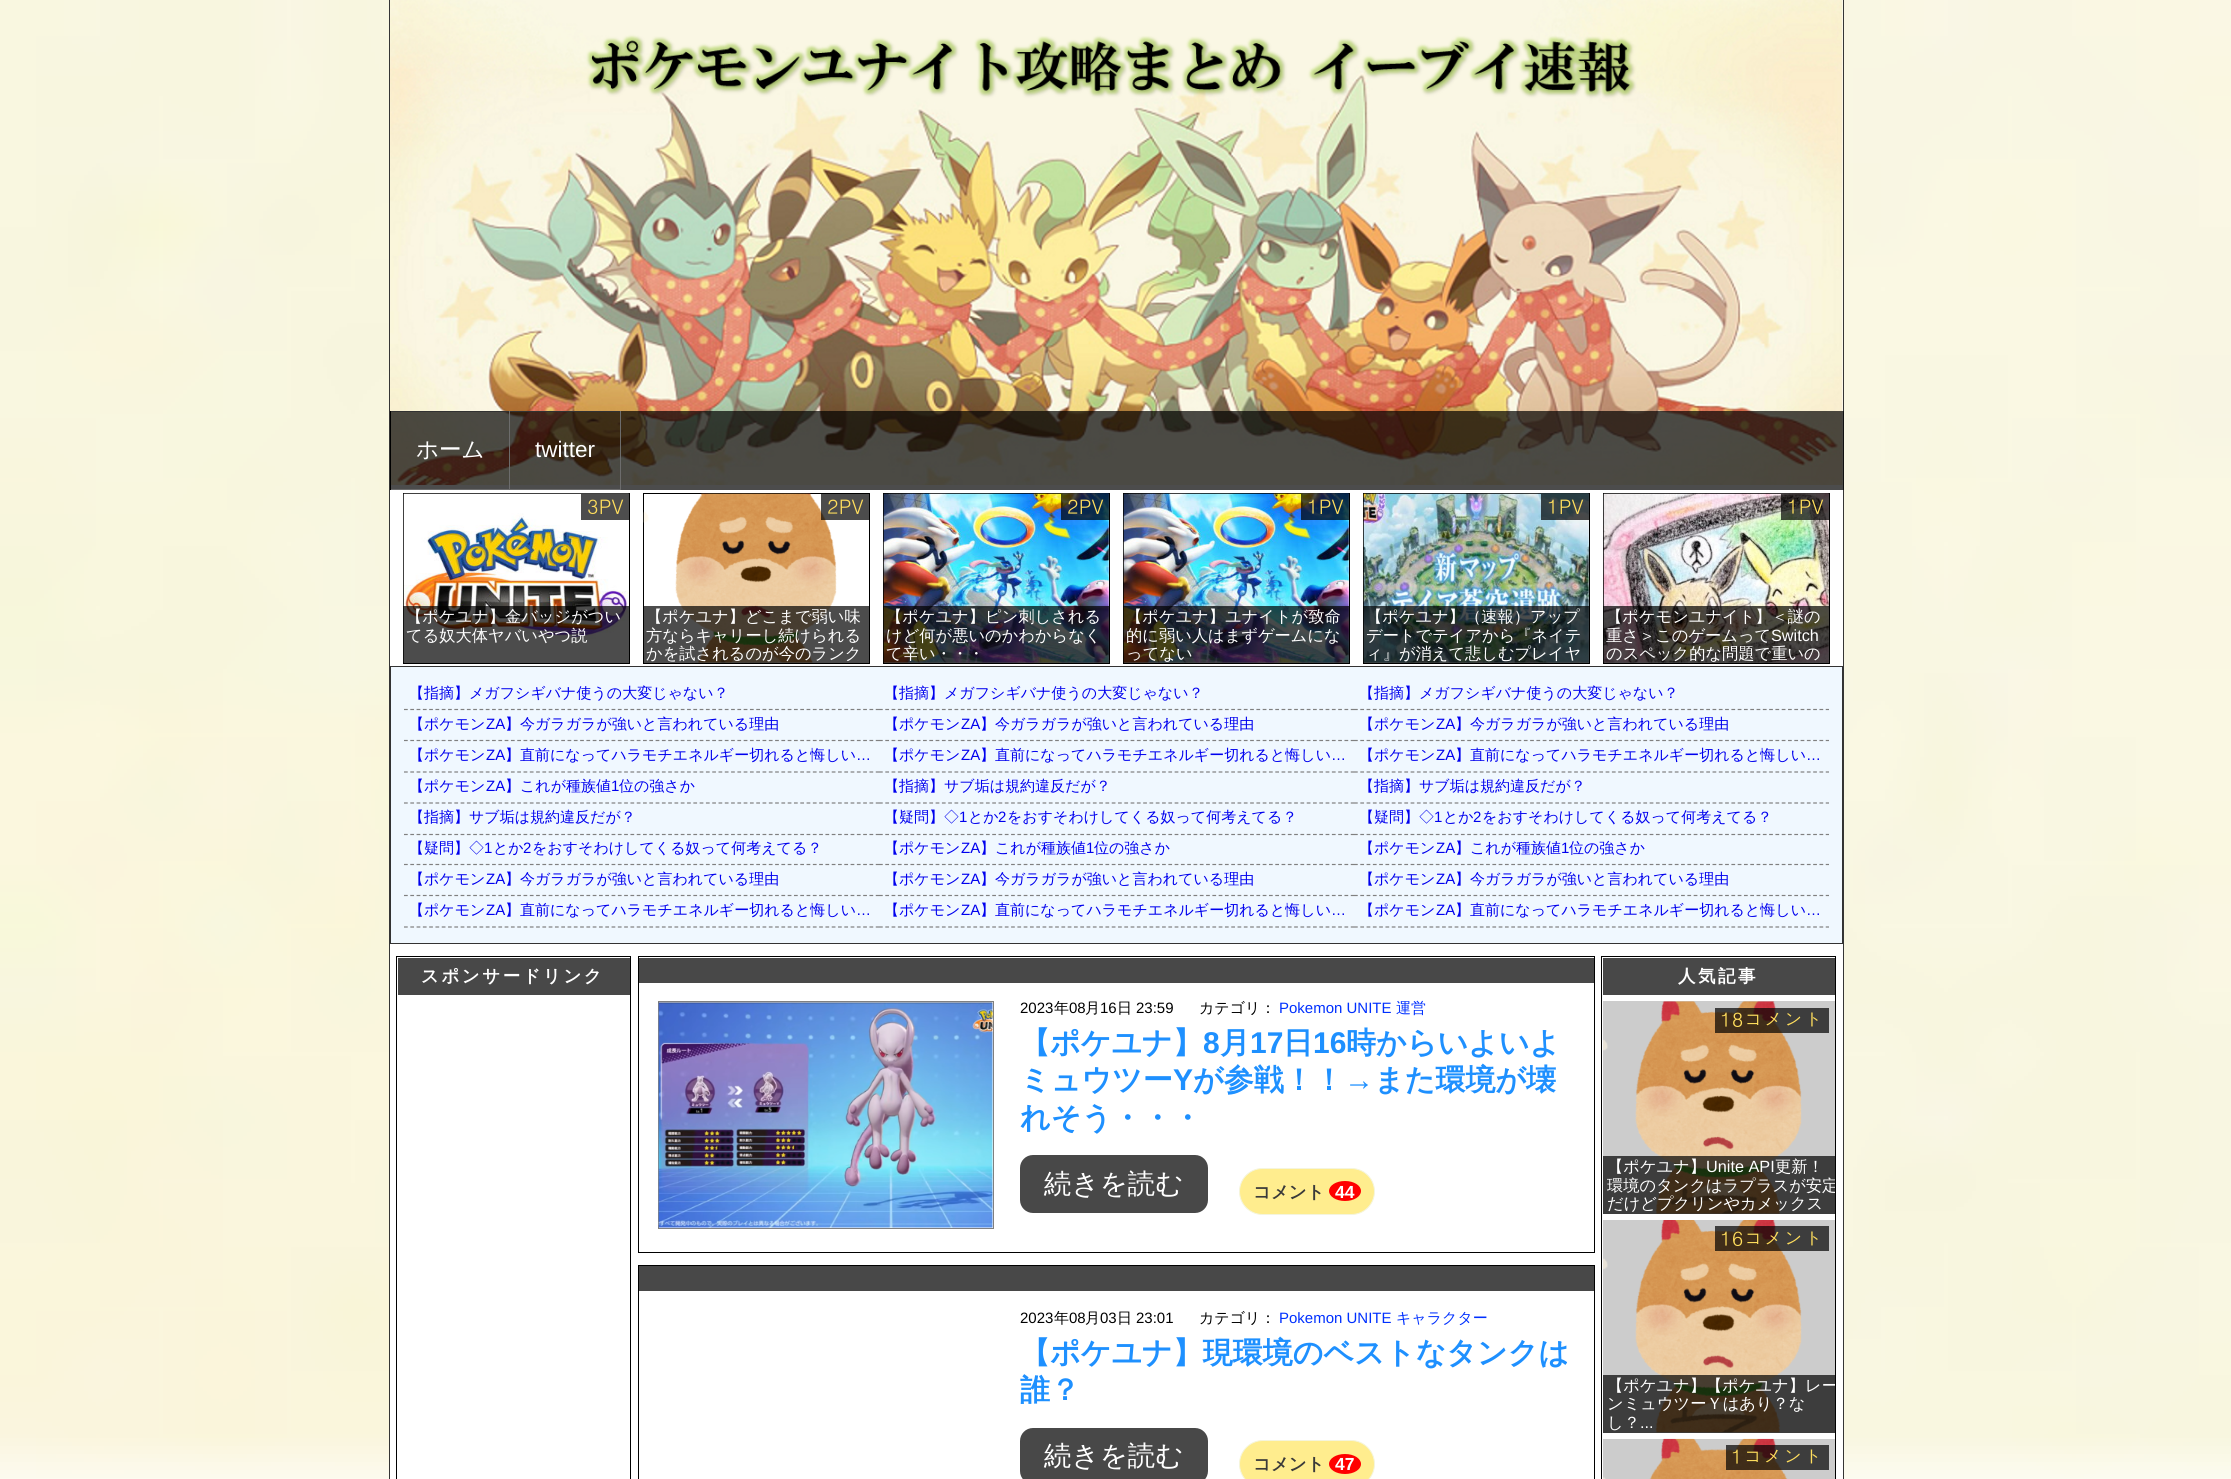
import math
import cairocffi as cairo

surface = cairo.ImageSurface(cairo.FORMAT_RGB24, 2231, 1479)
ctx = cairo.Context(surface)
options = cairo.FontOptions()
options.set_hint_metrics(cairo.HINT_METRICS_OFF)
options.set_hint_style(cairo.HINT_STYLE_NONE)
ctx.set_font_options(options)
ctx.set_miter_limit(4)


def rgb(r, g, b):
    ctx.set_source_rgb(r / 255, g / 255, b / 255)


def face(family, size, italic, bold):
    ctx.select_font_face(family, cairo.FONT_SLANT_ITALIC if italic else cairo.FONT_SLANT_NORMAL, cairo.FONT_WEIGHT_BOLD if bold else cairo.FONT_WEIGHT_NORMAL)
    ctx.set_font_size(size)


def label(x, y, s):
    ctx.move_to(x, y)
    ctx.show_text(s)


def tracked(x, y, s, letter, word):
    ctx.move_to(x, y)
    for ch in s:
        ctx.show_text(ch)
        ctx.rel_move_to(letter + word * (ch == ' '), 0)


def rect(x, y, w, h):
    ctx.rectangle(x, y, w, h)
    ctx.fill()


def rrect(x, y, w, h, r):
    ctx.new_sub_path()
    for i, (u, v) in enumerate([(x + w - r, y + h - r), (x + r, y + h - r), (x + r, y + r), (x + w - r, y + r)]):
        ctx.arc(u, v, r, i * math.pi / 2, (i + 1) * math.pi / 2)
    ctx.close_path()


def image(path, x, y, w, h):
    ctx.save()
    ctx.set_source_surface(cairo.ImageSurface.create_from_png(path), x, y)
    ctx.rectangle(x, y, w, h)
    ctx.fill()
    ctx.restore()


rgb(255, 255, 255)
ctx.paint()
image('image0.png', 0, 0, 2231, 1479)
rgb(255, 255, 255)
rect(390, 0, 1453, 1479)
rgb(53, 53, 53)
rect(1843, 0, 1, 1479)
rect(389, 0, 1, 1479)
image('image1.png', 390, 0, 1453, 485)
ctx.set_source_rgba(0, 0, 0, 0.7)
rect(391, 411, 1453, 79)
rgb(0, 0, 0)
rect(390, 411, 1, 79)
rgb(50, 50, 50)
rect(391, 411, 230, 1)
rgb(108, 108, 108)
rect(509, 411, 1, 79)
rect(391, 489, 119, 1)
face('WenQuanYi Zen Hei Medium', 22.5, 0, 0)
rgb(255, 255, 255)
label(416, 457, 'ホーム')
rgb(108, 108, 108)
rect(620, 411, 1, 79)
rect(510, 489, 111, 1)
face('Liberation Sans', 22.5, 0, 0)
rgb(255, 255, 255)
label(535, 457, 'twitter')
ctx.rectangle(403.5, 493.5, 226, 170)
rgb(0, 0, 0)
ctx.set_line_width(1)
ctx.stroke()
image('image2.png', 403, 493, 226, 170)
rgb(77, 77, 77)
rect(581, 494, 48, 26)
face('Dotum', 20, 0, 0)
rgb(255, 222, 93)
label(587, 514, '3PV')
ctx.set_source_rgba(0, 0, 0, 0.7)
rect(403, 606, 226, 57)
face('WenQuanYi Zen Hei Medium', 16.25, 0, 0)
rgb(255, 255, 255)
label(406, 622, '【ポケユナ】金バッジがつい')
label(406, 641, 'てる奴大体ヤバいやつ説')
ctx.rectangle(643.5, 493.5, 226, 170)
rgb(0, 0, 0)
ctx.stroke()
image('image3.png', 643, 493, 194, 170)
ctx.set_source_rgba(0, 0, 0, 0.7)
rect(821, 494, 48, 26)
face('Dotum', 20, 0, 0)
rgb(255, 222, 93)
label(827, 514, '2PV')
ctx.set_source_rgba(0, 0, 0, 0.7)
rect(644, 606, 225, 57)
face('WenQuanYi Zen Hei Medium', 16.25, 0, 0)
rgb(255, 255, 255)
label(646, 622, '【ポケユナ】どこまで弱い味')
label(646, 641, '方ならキャリーし続けられる')
label(646, 659, 'かを試されるのが今のランク')
ctx.rectangle(883.5, 493.5, 226, 170)
rgb(0, 0, 0)
ctx.stroke()
image('image4.png', 883, 493, 226, 170)
ctx.set_source_rgba(0, 0, 0, 0.7)
rect(1061, 494, 48, 26)
face('Dotum', 20, 0, 0)
rgb(255, 222, 93)
label(1067, 514, '2PV')
ctx.set_source_rgba(0, 0, 0, 0.7)
rect(883, 606, 226, 57)
face('WenQuanYi Zen Hei Medium', 16.25, 0, 0)
rgb(255, 255, 255)
label(886, 622, '【ポケユナ】ピン刺しされる')
label(886, 641, 'けど何が悪いのかわからなく')
label(886, 659, 'て辛い・・・')
ctx.rectangle(1123.5, 493.5, 226, 170)
rgb(0, 0, 0)
ctx.stroke()
image('image5.png', 1123, 493, 226, 170)
ctx.set_source_rgba(0, 0, 0, 0.7)
rect(1301, 494, 48, 26)
face('Dotum', 20, 0, 0)
rgb(255, 222, 93)
label(1307, 514, '1PV')
ctx.set_source_rgba(0, 0, 0, 0.7)
rect(1123, 606, 226, 57)
face('WenQuanYi Zen Hei Medium', 16.25, 0, 0)
rgb(255, 255, 255)
label(1126, 622, '【ポケユナ】ユナイトが致命')
label(1126, 641, '的に弱い人はまずゲームにな')
label(1126, 659, 'ってない')
ctx.rectangle(1363.5, 493.5, 226, 170)
rgb(0, 0, 0)
ctx.stroke()
image('image6.png', 1363, 493, 226, 170)
ctx.set_source_rgba(0, 0, 0, 0.7)
rect(1541, 494, 48, 26)
face('Dotum', 20, 0, 0)
rgb(255, 222, 93)
label(1547, 514, '1PV')
ctx.set_source_rgba(0, 0, 0, 0.7)
rect(1363, 606, 226, 57)
face('WenQuanYi Zen Hei Medium', 16.25, 0, 0)
rgb(255, 255, 255)
label(1366, 622, '【ポケユナ】（速報）アップ')
label(1366, 641, 'デートでテイアから『ネイテ')
label(1366, 659, 'ィ』が消えて悲しむプレイヤ')
ctx.rectangle(1603.5, 493.5, 226, 170)
rgb(0, 0, 0)
ctx.stroke()
image('image7.png', 1603, 493, 226, 170)
ctx.set_source_rgba(0, 0, 0, 0.7)
rect(1781, 494, 48, 26)
face('Dotum', 20, 0, 0)
rgb(255, 222, 93)
label(1787, 514, '1PV')
ctx.set_source_rgba(0, 0, 0, 0.7)
rect(1603, 606, 226, 57)
face('WenQuanYi Zen Hei Medium', 16.25, 0, 0)
rgb(255, 255, 255)
label(1606, 622, '【ポケモンユナイト】＜謎の')
label(1606, 641, '重さ＞このゲームって')
face('Liberation Sans', 16.25, 0, 0)
label(1771, 641, 'Switch')
face('WenQuanYi Zen Hei Medium', 16.25, 0, 0)
label(1606, 659, 'のスペック的な問題で重いの')
rgb(240, 248, 255)
ctx.rectangle(390.5, 666.5, 1452, 277)
ctx.fill_preserve()
rgb(51, 51, 51)
ctx.stroke()
ctx.new_path()
ctx.move_to(404, 709.5)
ctx.line_to(879, 709.5)
rgb(128, 128, 128)
ctx.set_line_width(1.2)
ctx.set_dash([3.75, 2.54])
ctx.stroke()
face('WenQuanYi Zen Hei Medium', 15, 0, 0)
rgb(0, 0, 238)
label(409, 698, '【指摘】メガフシギバナ使うの大変じゃない？')
ctx.new_path()
ctx.move_to(404, 740.5)
ctx.line_to(879, 740.5)
rgb(128, 128, 128)
ctx.stroke()
rgb(0, 0, 238)
label(409, 729, '【ポケモン')
face('Liberation Sans', 15, 0, 0)
label(486, 729, 'ZA')
face('WenQuanYi Zen Hei Medium', 15, 0, 0)
label(505, 729, '】今ガラガラが強いと言われている理由')
ctx.new_path()
ctx.move_to(404, 772)
ctx.line_to(879, 772)
rgb(128, 128, 128)
ctx.stroke()
rgb(0, 0, 238)
label(409, 760, '【ポケモン')
face('Liberation Sans', 15, 0, 0)
label(486, 760, 'ZA')
face('WenQuanYi Zen Hei Medium', 15, 0, 0)
label(505, 760, '】直前になってハラモチエネルギー切れると悔しい')
face('Liberation Sans', 15, 0, 0)
label(856, 760, '…')
ctx.new_path()
ctx.move_to(404, 803)
ctx.line_to(879, 803)
rgb(128, 128, 128)
ctx.stroke()
face('WenQuanYi Zen Hei Medium', 15, 0, 0)
rgb(0, 0, 238)
label(409, 791, '【ポケモン')
face('Liberation Sans', 15, 0, 0)
label(486, 791, 'ZA')
face('WenQuanYi Zen Hei Medium', 15, 0, 0)
label(505, 791, '】これが種族値')
face('Liberation Sans', 15, 0, 0)
label(611, 791, '1')
face('WenQuanYi Zen Hei Medium', 15, 0, 0)
label(619, 791, '位の強さか')
ctx.new_path()
ctx.move_to(404, 834.5)
ctx.line_to(879, 834.5)
rgb(128, 128, 128)
ctx.stroke()
rgb(0, 0, 238)
label(409, 822, '【指摘】サブ垢は規約違反だが？')
ctx.new_path()
ctx.move_to(404, 864.5)
ctx.line_to(879, 864.5)
rgb(128, 128, 128)
ctx.stroke()
rgb(0, 0, 238)
label(409, 853, '【疑問】◇')
face('Liberation Sans', 15, 0, 0)
label(484, 853, '1')
face('WenQuanYi Zen Hei Medium', 15, 0, 0)
label(493, 853, 'とか')
face('Liberation Sans', 15, 0, 0)
label(523, 853, '2')
face('WenQuanYi Zen Hei Medium', 15, 0, 0)
label(532, 853, 'をおすそわけしてくる奴って何考えてる？')
ctx.new_path()
ctx.move_to(404, 895.5)
ctx.line_to(879, 895.5)
rgb(128, 128, 128)
ctx.stroke()
rgb(0, 0, 238)
label(409, 884, '【ポケモン')
face('Liberation Sans', 15, 0, 0)
label(486, 884, 'ZA')
face('WenQuanYi Zen Hei Medium', 15, 0, 0)
label(505, 884, '】今ガラガラが強いと言われている理由')
ctx.new_path()
ctx.move_to(404, 927)
ctx.line_to(879, 927)
rgb(128, 128, 128)
ctx.stroke()
rgb(0, 0, 238)
label(409, 915, '【ポケモン')
face('Liberation Sans', 15, 0, 0)
label(486, 915, 'ZA')
face('WenQuanYi Zen Hei Medium', 15, 0, 0)
label(505, 915, '】直前になってハラモチエネルギー切れると悔しい')
face('Liberation Sans', 15, 0, 0)
label(856, 915, '…')
ctx.new_path()
ctx.move_to(879, 709.5)
ctx.line_to(1354, 709.5)
rgb(128, 128, 128)
ctx.stroke()
face('WenQuanYi Zen Hei Medium', 15, 0, 0)
rgb(0, 0, 238)
label(884, 698, '【指摘】メガフシギバナ使うの大変じゃない？')
ctx.new_path()
ctx.move_to(879, 740.5)
ctx.line_to(1354, 740.5)
rgb(128, 128, 128)
ctx.stroke()
rgb(0, 0, 238)
label(884, 729, '【ポケモン')
face('Liberation Sans', 15, 0, 0)
label(961, 729, 'ZA')
face('WenQuanYi Zen Hei Medium', 15, 0, 0)
label(980, 729, '】今ガラガラが強いと言われている理由')
ctx.new_path()
ctx.move_to(879, 772)
ctx.line_to(1354, 772)
rgb(128, 128, 128)
ctx.stroke()
rgb(0, 0, 238)
label(884, 760, '【ポケモン')
face('Liberation Sans', 15, 0, 0)
label(961, 760, 'ZA')
face('WenQuanYi Zen Hei Medium', 15, 0, 0)
label(980, 760, '】直前になってハラモチエネルギー切れると悔しい')
face('Liberation Sans', 15, 0, 0)
label(1331, 760, '…')
ctx.new_path()
ctx.move_to(879, 803)
ctx.line_to(1354, 803)
rgb(128, 128, 128)
ctx.stroke()
face('WenQuanYi Zen Hei Medium', 15, 0, 0)
rgb(0, 0, 238)
label(884, 791, '【指摘】サブ垢は規約違反だが？')
ctx.new_path()
ctx.move_to(879, 834.5)
ctx.line_to(1354, 834.5)
rgb(128, 128, 128)
ctx.stroke()
rgb(0, 0, 238)
label(884, 822, '【疑問】◇')
face('Liberation Sans', 15, 0, 0)
label(959, 822, '1')
face('WenQuanYi Zen Hei Medium', 15, 0, 0)
label(968, 822, 'とか')
face('Liberation Sans', 15, 0, 0)
label(998, 822, '2')
face('WenQuanYi Zen Hei Medium', 15, 0, 0)
label(1007, 822, 'をおすそわけしてくる奴って何考えてる？')
ctx.new_path()
ctx.move_to(879, 864.5)
ctx.line_to(1354, 864.5)
rgb(128, 128, 128)
ctx.stroke()
rgb(0, 0, 238)
label(884, 853, '【ポケモン')
face('Liberation Sans', 15, 0, 0)
label(961, 853, 'ZA')
face('WenQuanYi Zen Hei Medium', 15, 0, 0)
label(980, 853, '】これが種族値')
face('Liberation Sans', 15, 0, 0)
label(1086, 853, '1')
face('WenQuanYi Zen Hei Medium', 15, 0, 0)
label(1094, 853, '位の強さか')
ctx.new_path()
ctx.move_to(879, 895.5)
ctx.line_to(1354, 895.5)
rgb(128, 128, 128)
ctx.stroke()
rgb(0, 0, 238)
label(884, 884, '【ポケモン')
face('Liberation Sans', 15, 0, 0)
label(961, 884, 'ZA')
face('WenQuanYi Zen Hei Medium', 15, 0, 0)
label(980, 884, '】今ガラガラが強いと言われている理由')
ctx.new_path()
ctx.move_to(879, 927)
ctx.line_to(1354, 927)
rgb(128, 128, 128)
ctx.stroke()
rgb(0, 0, 238)
label(884, 915, '【ポケモン')
face('Liberation Sans', 15, 0, 0)
label(961, 915, 'ZA')
face('WenQuanYi Zen Hei Medium', 15, 0, 0)
label(980, 915, '】直前になってハラモチエネルギー切れると悔しい')
face('Liberation Sans', 15, 0, 0)
label(1331, 915, '…')
ctx.new_path()
ctx.move_to(1354, 709.5)
ctx.line_to(1829, 709.5)
rgb(128, 128, 128)
ctx.stroke()
face('WenQuanYi Zen Hei Medium', 15, 0, 0)
rgb(0, 0, 238)
label(1359, 698, '【指摘】メガフシギバナ使うの大変じゃない？')
ctx.new_path()
ctx.move_to(1354, 740.5)
ctx.line_to(1829, 740.5)
rgb(128, 128, 128)
ctx.stroke()
rgb(0, 0, 238)
label(1359, 729, '【ポケモン')
face('Liberation Sans', 15, 0, 0)
label(1436, 729, 'ZA')
face('WenQuanYi Zen Hei Medium', 15, 0, 0)
label(1455, 729, '】今ガラガラが強いと言われている理由')
ctx.new_path()
ctx.move_to(1354, 772)
ctx.line_to(1829, 772)
rgb(128, 128, 128)
ctx.stroke()
rgb(0, 0, 238)
label(1359, 760, '【ポケモン')
face('Liberation Sans', 15, 0, 0)
label(1436, 760, 'ZA')
face('WenQuanYi Zen Hei Medium', 15, 0, 0)
label(1455, 760, '】直前になってハラモチエネルギー切れると悔しい')
face('Liberation Sans', 15, 0, 0)
label(1806, 760, '…')
ctx.new_path()
ctx.move_to(1354, 803)
ctx.line_to(1829, 803)
rgb(128, 128, 128)
ctx.stroke()
face('WenQuanYi Zen Hei Medium', 15, 0, 0)
rgb(0, 0, 238)
label(1359, 791, '【指摘】サブ垢は規約違反だが？')
ctx.new_path()
ctx.move_to(1354, 834.5)
ctx.line_to(1829, 834.5)
rgb(128, 128, 128)
ctx.stroke()
rgb(0, 0, 238)
label(1359, 822, '【疑問】◇')
face('Liberation Sans', 15, 0, 0)
label(1434, 822, '1')
face('WenQuanYi Zen Hei Medium', 15, 0, 0)
label(1443, 822, 'とか')
face('Liberation Sans', 15, 0, 0)
label(1473, 822, '2')
face('WenQuanYi Zen Hei Medium', 15, 0, 0)
label(1482, 822, 'をおすそわけしてくる奴って何考えてる？')
ctx.new_path()
ctx.move_to(1354, 864.5)
ctx.line_to(1829, 864.5)
rgb(128, 128, 128)
ctx.stroke()
rgb(0, 0, 238)
label(1359, 853, '【ポケモン')
face('Liberation Sans', 15, 0, 0)
label(1436, 853, 'ZA')
face('WenQuanYi Zen Hei Medium', 15, 0, 0)
label(1455, 853, '】これが種族値')
face('Liberation Sans', 15, 0, 0)
label(1561, 853, '1')
face('WenQuanYi Zen Hei Medium', 15, 0, 0)
label(1569, 853, '位の強さか')
ctx.new_path()
ctx.move_to(1354, 895.5)
ctx.line_to(1829, 895.5)
rgb(128, 128, 128)
ctx.stroke()
rgb(0, 0, 238)
label(1359, 884, '【ポケモン')
face('Liberation Sans', 15, 0, 0)
label(1436, 884, 'ZA')
face('WenQuanYi Zen Hei Medium', 15, 0, 0)
label(1455, 884, '】今ガラガラが強いと言われている理由')
ctx.new_path()
ctx.move_to(1354, 927)
ctx.line_to(1829, 927)
rgb(128, 128, 128)
ctx.stroke()
rgb(0, 0, 238)
label(1359, 915, '【ポケモン')
face('Liberation Sans', 15, 0, 0)
label(1436, 915, 'ZA')
face('WenQuanYi Zen Hei Medium', 15, 0, 0)
label(1455, 915, '】直前になってハラモチエネルギー切れると悔しい')
face('Liberation Sans', 15, 0, 0)
label(1806, 915, '…')
ctx.rectangle(396.5, 956.5, 234, 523)
rgb(0, 0, 0)
ctx.set_line_width(1)
ctx.set_dash([])
ctx.stroke()
rgb(72, 72, 72)
rect(398, 958, 232, 37)
face('WenQuanYi Zen Hei', 17.5, 0, 1)
rgb(255, 255, 255)
tracked(421, 982, 'スポンサードリンク', 2.5, 0)
ctx.rectangle(1601.5, 956.5, 234, 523)
rgb(0, 0, 0)
ctx.stroke()
rgb(72, 72, 72)
rect(1603, 958, 232, 37)
rgb(255, 255, 255)
tracked(1678, 982, '人気記事', 2.5, 0)
rgb(204, 204, 204)
rect(1603, 1001, 232, 213)
image('image8.png', 1603, 1001, 199, 213)
ctx.set_source_rgba(0, 0, 0, 0.7)
rect(1715, 1008, 114, 25)
face('Dotum', 20, 0, 0)
rgb(255, 222, 93)
label(1720, 1027, '18コメント')
ctx.set_source_rgba(0, 0, 0, 0.7)
rect(1603, 1156, 232, 58)
face('WenQuanYi Zen Hei Medium', 16.25, 0, 0)
rgb(255, 255, 255)
label(1607, 1172, '【ポケユナ】')
face('Liberation Sans', 16.25, 0, 0)
label(1706, 1172, 'Unite API')
face('WenQuanYi Zen Hei Medium', 16.25, 0, 0)
label(1775, 1172, '更新！')
ctx.save()
ctx.rectangle(1603, 1001, 232, 213)
ctx.clip()
label(1607, 1191, '環境のタンクはラプラスが安定')
ctx.restore()
label(1607, 1209, 'だけどプクリンやカメックス')
rgb(204, 204, 204)
rect(1603, 1220, 232, 213)
image('image9.png', 1603, 1220, 199, 213)
ctx.set_source_rgba(0, 0, 0, 0.7)
rect(1715, 1226, 114, 25)
face('Dotum', 20, 0, 0)
rgb(255, 222, 93)
label(1720, 1246, '16コメント')
ctx.set_source_rgba(0, 0, 0, 0.7)
rect(1603, 1375, 232, 58)
ctx.save()
ctx.rectangle(1603, 1220, 232, 213)
ctx.clip()
face('WenQuanYi Zen Hei Medium', 16.25, 0, 0)
rgb(255, 255, 255)
label(1607, 1391, '【ポケユナ】【ポケユナ】レー')
ctx.restore()
face('WenQuanYi Zen Hei Medium', 16.25, 0, 0)
rgb(255, 255, 255)
label(1607, 1409, 'ンミュウツーＹはあり？な')
label(1607, 1428, 'し？')
face('Liberation Sans', 16.25, 0, 0)
label(1640, 1428, '...')
rgb(204, 204, 204)
rect(1603, 1439, 232, 40)
image('image10.png', 1603, 1438, 185, 41)
ctx.set_source_rgba(0, 0, 0, 0.7)
rect(1726, 1445, 103, 25)
face('Dotum', 20, 0, 0)
rgb(255, 222, 93)
label(1731, 1464, '1コメント')
ctx.rectangle(638.5, 956.5, 956, 296)
rgb(0, 0, 0)
ctx.stroke()
rgb(72, 72, 72)
rect(639, 958, 955, 25)
ctx.rectangle(658.5, 1001.5, 335, 227)
rgb(128, 128, 128)
ctx.stroke()
image('image11.png', 658, 1002, 335, 226)
face('Liberation Sans', 15, 0, 0)
rgb(0, 0, 0)
label(1020, 1013, '2023')
face('WenQuanYi Zen Hei Medium', 15, 0, 0)
label(1054, 1013, '年')
face('Liberation Sans', 15, 0, 0)
label(1069, 1013, '08')
face('WenQuanYi Zen Hei Medium', 15, 0, 0)
label(1085, 1013, '月')
face('Liberation Sans', 15, 0, 0)
label(1100, 1013, '16')
face('WenQuanYi Zen Hei Medium', 15, 0, 0)
label(1117, 1013, '日')
face('Liberation Sans', 15, 0, 0)
label(1136, 1013, '23:59')
face('WenQuanYi Zen Hei Medium', 15, 0, 0)
label(1199, 1013, 'カテゴリ：')
face('Liberation Sans', 15, 0, 0)
rgb(0, 48, 255)
label(1279, 1013, 'Pokemon UNITE')
face('WenQuanYi Zen Hei Medium', 15, 0, 0)
label(1396, 1013, '運営')
face('WenQuanYi Zen Hei', 30, 0, 1)
rgb(30, 144, 255)
label(1020, 1053, '【ポケユナ】')
face('Liberation Sans', 30, 0, 1)
label(1203, 1053, '8')
face('WenQuanYi Zen Hei', 30, 0, 1)
label(1220, 1053, '月')
face('Liberation Sans', 30, 0, 1)
label(1250, 1053, '17')
face('WenQuanYi Zen Hei', 30, 0, 1)
label(1283, 1053, '日')
face('Liberation Sans', 30, 0, 1)
label(1313, 1053, '16')
face('WenQuanYi Zen Hei', 30, 0, 1)
label(1346, 1053, '時からいよいよ')
label(1020, 1090, 'ミュウツー')
face('Liberation Sans', 30, 0, 1)
label(1173, 1090, 'Y')
face('WenQuanYi Zen Hei', 30, 0, 1)
label(1193, 1090, 'が参戦！！')
face('Liberation Sans', 30, 0, 1)
label(1344, 1090, '→')
face('WenQuanYi Zen Hei', 30, 0, 1)
label(1374, 1090, 'また環境が壊')
label(1020, 1128, 'れそう・・・')
rgb(72, 72, 72)
rrect(1026.5, 1161.5, 175, 45, 6.5)
ctx.fill_preserve()
ctx.set_line_width(13)
ctx.stroke()
face('WenQuanYi Zen Hei Medium', 27.5, 0, 0)
rgb(255, 255, 255)
label(1044, 1193, '続きを読む')
rgb(255, 237, 142)
rrect(1239.5, 1168.5, 135, 46, 23)
ctx.fill_preserve()
rgb(245, 245, 220)
ctx.set_line_width(1)
ctx.stroke()
face('WenQuanYi Zen Hei', 17.5, 0, 1)
rgb(58, 58, 58)
label(1253, 1198, 'コメント')
rgb(255, 0, 0)
ctx.new_path()
ctx.move_to(1345, 1181)
ctx.curve_to(1354, 1181, 1361, 1185.5, 1361, 1191)
ctx.curve_to(1361, 1196.5, 1354, 1201, 1345, 1201)
ctx.curve_to(1336, 1201, 1329, 1196.5, 1329, 1191)
ctx.curve_to(1329, 1185.5, 1336, 1181, 1345, 1181)
ctx.close_path()
ctx.fill()
face('Liberation Sans', 17.5, 0, 1)
rgb(255, 255, 255)
label(1335, 1198, '44')
ctx.rectangle(638.5, 1265.5, 956, 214)
rgb(0, 0, 0)
ctx.stroke()
rgb(72, 72, 72)
rect(639, 1266, 955, 25)
face('Liberation Sans', 15, 0, 0)
rgb(0, 0, 0)
label(1020, 1323, '2023')
face('WenQuanYi Zen Hei Medium', 15, 0, 0)
label(1054, 1323, '年')
face('Liberation Sans', 15, 0, 0)
label(1069, 1323, '08')
face('WenQuanYi Zen Hei Medium', 15, 0, 0)
label(1085, 1323, '月')
face('Liberation Sans', 15, 0, 0)
label(1100, 1323, '03')
face('WenQuanYi Zen Hei Medium', 15, 0, 0)
label(1117, 1323, '日')
face('Liberation Sans', 15, 0, 0)
label(1136, 1323, '23:01')
face('WenQuanYi Zen Hei Medium', 15, 0, 0)
label(1199, 1323, 'カテゴリ：')
face('Liberation Sans', 15, 0, 0)
rgb(0, 48, 255)
label(1279, 1323, 'Pokemon UNITE')
face('WenQuanYi Zen Hei Medium', 15, 0, 0)
label(1396, 1323, 'キャラクター')
face('WenQuanYi Zen Hei', 30, 0, 1)
rgb(30, 144, 255)
label(1020, 1363, '【ポケユナ】現環境のベストなタンクは')
label(1020, 1400, '誰？')
rgb(72, 72, 72)
rrect(1026.5, 1434.5, 175, 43, 6.5)
ctx.fill_preserve()
ctx.set_line_width(13)
ctx.stroke()
face('WenQuanYi Zen Hei Medium', 27.5, 0, 0)
rgb(255, 255, 255)
label(1044, 1465, '続きを読む')
rgb(255, 237, 142)
rrect(1239.5, 1440.5, 135, 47, 23.5)
ctx.fill_preserve()
rgb(245, 245, 220)
ctx.set_line_width(1)
ctx.stroke()
face('WenQuanYi Zen Hei', 17.5, 0, 1)
rgb(58, 58, 58)
label(1253, 1470, 'コメント')
rgb(255, 0, 0)
ctx.new_path()
ctx.move_to(1345, 1454)
ctx.curve_to(1354, 1454, 1361, 1458.5, 1361, 1464)
ctx.curve_to(1361, 1469.5, 1354, 1474, 1345, 1474)
ctx.curve_to(1336, 1474, 1329, 1469.5, 1329, 1464)
ctx.curve_to(1329, 1458.5, 1336, 1454, 1345, 1454)
ctx.close_path()
ctx.fill()
face('Liberation Sans', 17.5, 0, 1)
rgb(255, 255, 255)
label(1335, 1470, '47')
surface.write_to_png('render.png')
